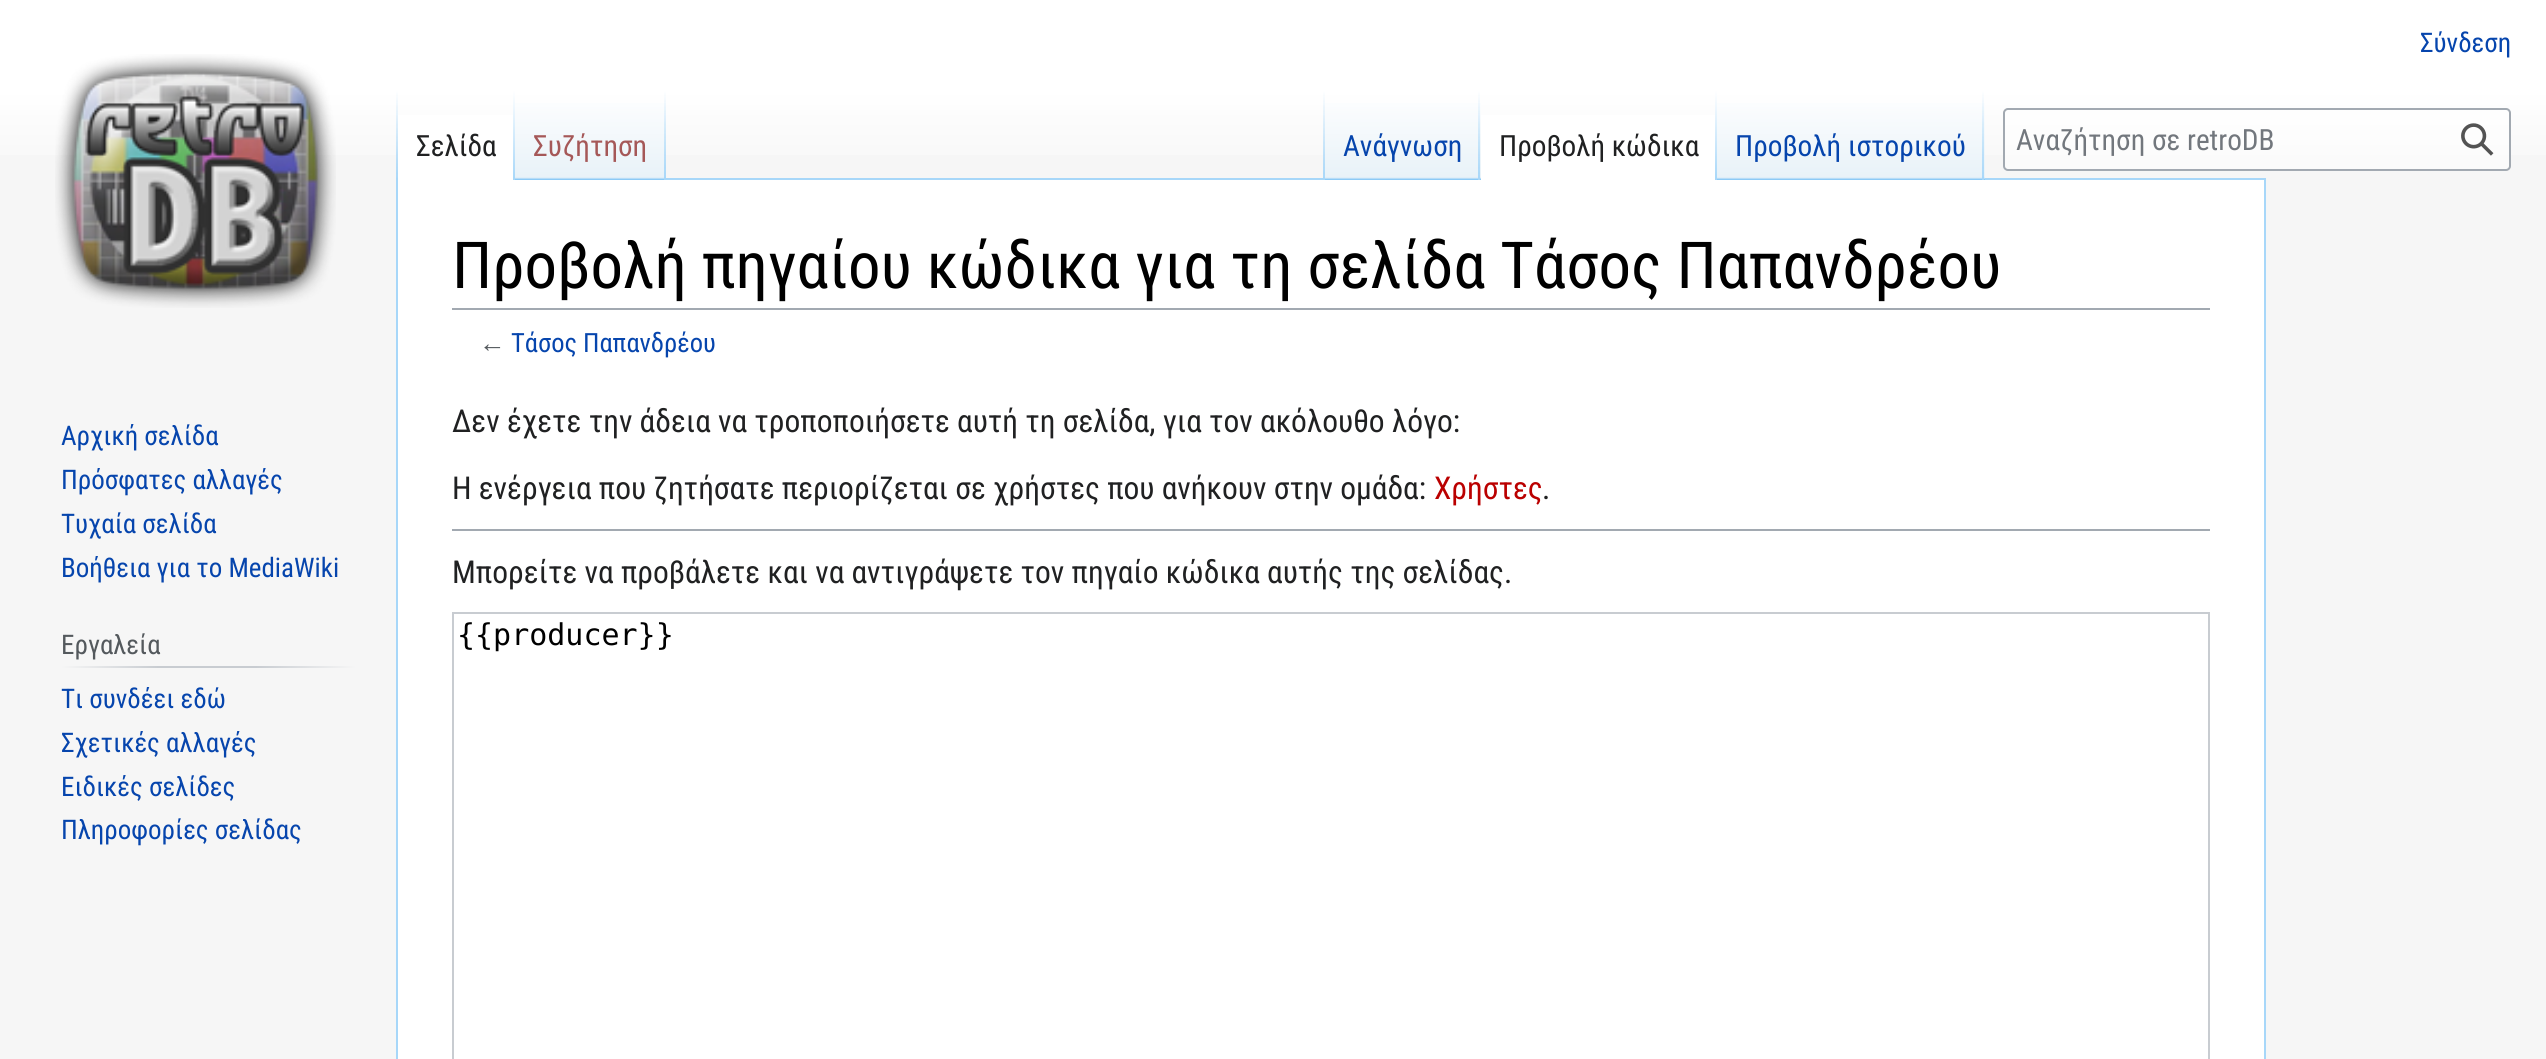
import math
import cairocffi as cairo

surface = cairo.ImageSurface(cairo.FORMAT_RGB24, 2546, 1059)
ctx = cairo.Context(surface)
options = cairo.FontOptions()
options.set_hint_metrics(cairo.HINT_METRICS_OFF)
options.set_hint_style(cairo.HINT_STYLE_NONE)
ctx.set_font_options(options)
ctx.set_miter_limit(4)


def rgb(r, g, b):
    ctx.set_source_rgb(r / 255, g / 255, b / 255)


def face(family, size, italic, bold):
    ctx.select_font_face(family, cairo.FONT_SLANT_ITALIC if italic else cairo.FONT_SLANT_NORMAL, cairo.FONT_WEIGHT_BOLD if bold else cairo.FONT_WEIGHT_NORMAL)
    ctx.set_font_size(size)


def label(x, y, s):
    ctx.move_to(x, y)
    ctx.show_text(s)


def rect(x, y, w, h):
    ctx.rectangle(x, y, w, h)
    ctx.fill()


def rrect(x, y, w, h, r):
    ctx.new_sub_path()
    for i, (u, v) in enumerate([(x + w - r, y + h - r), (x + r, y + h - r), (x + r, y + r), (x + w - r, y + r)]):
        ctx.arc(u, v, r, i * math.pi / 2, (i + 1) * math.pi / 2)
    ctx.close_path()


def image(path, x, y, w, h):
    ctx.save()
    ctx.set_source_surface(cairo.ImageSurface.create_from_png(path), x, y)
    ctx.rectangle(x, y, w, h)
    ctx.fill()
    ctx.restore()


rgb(246, 246, 246)
ctx.paint()
gradient = cairo.LinearGradient(1274, 0, 1274, 180)
gradient.add_color_stop_rgba(0.5, 1, 1, 1, 1)
gradient.add_color_stop_rgba(1, 0.965, 0.965, 0.965, 1)
ctx.set_source(gradient)
rect(0, 0, 2546, 155)
face('Roboto Condensed', 27, 0, 0)
rgb(6, 69, 173)
label(2420, 52, 'Σύνδεση')
rgb(255, 255, 255)
ctx.rectangle(397, 179, 1868, 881)
ctx.fill_preserve()
rgb(167, 215, 249)
ctx.stroke()
gradient = cairo.LinearGradient(397, 90, 397, 180)
gradient.add_color_stop_rgba(0, 0.655, 0.843, 0.976, 0)
gradient.add_color_stop_rgba(1, 0.655, 0.843, 0.976, 1)
ctx.set_source(gradient)
rect(396, 90, 2, 90)
rgb(255, 255, 255)
rect(398, 115, 115, 65)
gradient = cairo.LinearGradient(514, 90, 514, 180)
gradient.add_color_stop_rgba(0, 1, 1, 1, 1)
gradient.add_color_stop_rgba(1, 0.655, 0.843, 0.976, 1)
ctx.set_source(gradient)
rect(513, 90, 2, 90)
face('Roboto Condensed', 29.25, 0, 0)
rgb(32, 33, 34)
label(416, 156, 'Σελίδα')
gradient = cairo.LinearGradient(591, 180, 591, 90)
gradient.add_color_stop_rgba(0, 0.467, 0.757, 0.965, 1)
gradient.add_color_stop_rgba(0.03, 0.91, 0.949, 0.973, 1)
gradient.add_color_stop_rgba(1, 1, 1, 1, 1)
ctx.set_source(gradient)
rect(515, 103, 151, 77)
gradient = cairo.LinearGradient(665, 90, 665, 180)
gradient.add_color_stop_rgba(0, 0.655, 0.843, 0.976, 0)
gradient.add_color_stop_rgba(1, 0.655, 0.843, 0.976, 1)
ctx.set_source(gradient)
rect(664, 90, 2, 90)
rgb(165, 88, 88)
label(533, 156, 'Συζήτηση')
gradient = cairo.LinearGradient(1324, 90, 1324, 180)
gradient.add_color_stop_rgba(0, 0.655, 0.843, 0.976, 0)
gradient.add_color_stop_rgba(1, 0.655, 0.843, 0.976, 1)
ctx.set_source(gradient)
rect(1323, 90, 2, 90)
gradient = cairo.LinearGradient(1403, 180, 1403, 90)
gradient.add_color_stop_rgba(0, 0.467, 0.757, 0.965, 1)
gradient.add_color_stop_rgba(0.03, 0.91, 0.949, 0.973, 1)
gradient.add_color_stop_rgba(1, 1, 1, 1, 1)
ctx.set_source(gradient)
rect(1325, 103, 156, 77)
gradient = cairo.LinearGradient(1479, 90, 1479, 180)
gradient.add_color_stop_rgba(0, 0.655, 0.843, 0.976, 0)
gradient.add_color_stop_rgba(1, 0.655, 0.843, 0.976, 1)
ctx.set_source(gradient)
rect(1478, 90, 2, 90)
rgb(6, 69, 173)
label(1343, 156, 'Ανάγνωση')
rgb(255, 255, 255)
rect(1481, 115, 234, 65)
gradient = cairo.LinearGradient(1716, 90, 1716, 180)
gradient.add_color_stop_rgba(0, 1, 1, 1, 1)
gradient.add_color_stop_rgba(1, 0.655, 0.843, 0.976, 1)
ctx.set_source(gradient)
rect(1715, 90, 2, 90)
rgb(32, 33, 34)
label(1499, 156, 'Προβολή κώδικα')
gradient = cairo.LinearGradient(1851, 180, 1851, 90)
gradient.add_color_stop_rgba(0, 0.467, 0.757, 0.965, 1)
gradient.add_color_stop_rgba(0.03, 0.91, 0.949, 0.973, 1)
gradient.add_color_stop_rgba(1, 1, 1, 1, 1)
ctx.set_source(gradient)
rect(1717, 103, 268, 77)
gradient = cairo.LinearGradient(1983, 90, 1983, 180)
gradient.add_color_stop_rgba(0, 0.655, 0.843, 0.976, 0)
gradient.add_color_stop_rgba(1, 0.655, 0.843, 0.976, 1)
ctx.set_source(gradient)
rect(1982, 90, 2, 90)
rgb(6, 69, 173)
label(1735, 156, 'Προβολή ιστορικού')
ctx.set_source_rgba(1, 1, 1, 0.5)
rrect(2004, 109, 506, 61, 4)
ctx.fill_preserve()
rgb(162, 169, 177)
ctx.stroke()
rgb(114, 119, 125)
label(2016, 150, 'Αναζήτηση σε retroDB')
image('image0.png', 2461, 123, 33, 33)
image('image1.png', 55, 54, 281, 254)
face('Roboto Condensed', 27, 0, 0)
rgb(6, 69, 173)
label(61, 445, 'Αρχική σελίδα')
label(61, 489, 'Πρόσφατες αλλαγές')
label(61, 533, 'Τυχαία σελίδα')
label(61, 577, 'Βοήθεια για το MediaWiki')
gradient = cairo.LinearGradient(61, 667, 356, 667)
gradient.add_color_stop_rgba(0, 0.965, 0.965, 0.965, 1)
gradient.add_color_stop_rgba(0.33, 0.784, 0.8, 0.82, 1)
gradient.add_color_stop_rgba(0.66, 0.784, 0.8, 0.82, 1)
gradient.add_color_stop_rgba(1, 0.965, 0.965, 0.965, 1)
ctx.set_source(gradient)
rect(61, 666, 295, 2)
rgb(84, 89, 93)
label(61, 654, 'Εργαλεία')
rgb(6, 69, 173)
label(61, 708, 'Τι συνδέει εδώ')
label(61, 752, 'Σχετικές αλλαγές')
label(61, 796, 'Ειδικές σελίδες')
label(61, 839, 'Πληροφορίες σελίδας')
rgb(162, 169, 177)
rect(452, 308, 1758, 2)
face('Roboto Condensed', 64.8, 0, 0)
rgb(0, 0, 0)
label(452, 288, 'Προβολή πηγαίου κώδικα για τη σελίδα Τάσος Παπανδρέου')
face('Liberation Serif', 26.5, 0, 0)
rgb(84, 89, 93)
label(479, 352, '←')
face('Roboto Condensed', 26.5, 0, 0)
rgb(6, 69, 173)
label(511, 352, 'Τάσος Παπανδρέου')
face('Roboto Condensed', 31.5, 0, 0)
rgb(32, 33, 34)
label(452, 432, 'Δεν έχετε την άδεια να τροποποιήσετε αυτή τη σελίδα, για τον ακόλουθο λόγο:')
label(452, 499, 'Η ενέργεια που ζητήσατε περιορίζεται σε χρήστες που ανήκουν στην ομάδα:')
rgb(186, 0, 0)
label(1434, 499, 'Χρήστες')
rgb(32, 33, 34)
label(1542, 499, '.')
rgb(162, 169, 177)
rect(452, 529, 1758, 2)
rgb(32, 33, 34)
label(452, 583, 'Μπορείτε να προβάλετε και να αντιγράψετε τον πηγαίο κώδικα αυτής της σελίδας.')
ctx.rectangle(453, 613, 1756, 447)
rgb(200, 204, 209)
ctx.stroke()
face('DejaVu Sans Mono', 30, 0, 0)
rgb(0, 0, 0)
label(457, 645, '{{producer}}')
surface.write_to_png('render.png')
